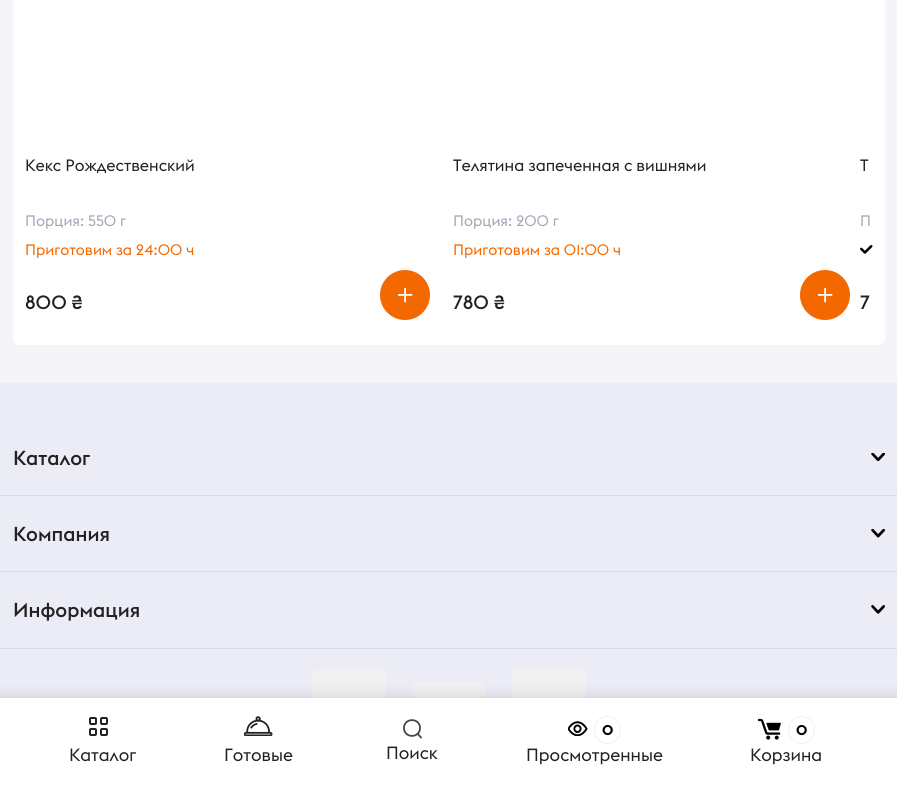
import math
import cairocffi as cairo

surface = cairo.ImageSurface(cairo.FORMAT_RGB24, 897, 787)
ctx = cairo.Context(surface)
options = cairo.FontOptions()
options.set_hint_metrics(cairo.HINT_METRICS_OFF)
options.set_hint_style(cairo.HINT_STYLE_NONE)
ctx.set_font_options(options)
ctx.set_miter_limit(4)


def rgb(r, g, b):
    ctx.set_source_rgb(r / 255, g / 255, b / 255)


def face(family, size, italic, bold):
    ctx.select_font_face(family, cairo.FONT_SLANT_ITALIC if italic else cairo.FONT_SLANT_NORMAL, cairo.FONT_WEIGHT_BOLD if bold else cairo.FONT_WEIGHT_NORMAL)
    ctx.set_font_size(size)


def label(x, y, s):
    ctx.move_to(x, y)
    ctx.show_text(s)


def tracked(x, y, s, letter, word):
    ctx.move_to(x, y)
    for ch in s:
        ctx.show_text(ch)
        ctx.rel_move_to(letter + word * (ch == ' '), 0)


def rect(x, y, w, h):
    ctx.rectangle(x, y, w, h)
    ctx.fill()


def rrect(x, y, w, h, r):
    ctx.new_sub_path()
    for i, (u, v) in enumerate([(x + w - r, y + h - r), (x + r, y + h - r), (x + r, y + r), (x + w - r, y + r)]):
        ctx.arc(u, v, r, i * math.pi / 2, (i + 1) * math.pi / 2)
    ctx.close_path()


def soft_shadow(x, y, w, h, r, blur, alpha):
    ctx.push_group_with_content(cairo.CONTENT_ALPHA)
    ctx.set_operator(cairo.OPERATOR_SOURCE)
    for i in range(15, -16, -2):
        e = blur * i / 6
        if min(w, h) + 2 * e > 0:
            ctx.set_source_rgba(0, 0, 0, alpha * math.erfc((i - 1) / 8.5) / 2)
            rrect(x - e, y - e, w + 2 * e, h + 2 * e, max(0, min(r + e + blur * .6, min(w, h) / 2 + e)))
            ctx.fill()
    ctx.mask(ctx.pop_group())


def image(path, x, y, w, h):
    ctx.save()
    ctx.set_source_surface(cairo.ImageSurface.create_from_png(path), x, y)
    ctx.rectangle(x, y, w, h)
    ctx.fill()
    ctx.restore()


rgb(245, 244, 249)
ctx.paint()
rgb(255, 255, 255)
rrect(13, -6, 872, 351, 6)
ctx.fill()
face('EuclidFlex', 16.25, 0, 0)
rgb(34, 34, 34)
label(25, 171, 'Кекс Рождественский')
face('EuclidFlex', 15, 0, 0)
rgb(160, 167, 182)
label(25, 226, 'Порция: 550 г')
rgb(244, 104, 0)
label(25, 255, 'Приготовим за 24:00 ч')
face('EuclidFlex Medium', 19, 0, 0)
rgb(34, 34, 34)
label(25, 309, '800 ₴')
rgb(244, 104, 0)
ctx.new_path()
ctx.arc(405, 295, 25, 0, 2 * math.pi)
ctx.fill()
image('image0.png', 398, 288, 15, 15)
face('EuclidFlex', 16.25, 0, 0)
rgb(34, 34, 34)
label(453, 171, 'Телятина запеченная с вишнями')
face('EuclidFlex', 15, 0, 0)
rgb(160, 167, 182)
label(453, 226, 'Порция: 200 г')
rgb(244, 104, 0)
label(453, 255, 'Приготовим за 01:00 ч')
face('EuclidFlex Medium', 19, 0, 0)
rgb(34, 34, 34)
label(453, 309, '780 ₴')
rgb(244, 104, 0)
ctx.new_path()
ctx.arc(825, 295, 25, 0, 2 * math.pi)
ctx.fill()
image('image0.png', 818, 288, 15, 15)
face('EuclidFlex', 16.25, 0, 0)
rgb(34, 34, 34)
label(860, 171, 'Т')
face('EuclidFlex', 15, 0, 0)
rgb(160, 167, 182)
label(860, 226, 'П')
image('image1.png', 860, 245, 13, 9)
face('EuclidFlex Medium', 19, 0, 0)
rgb(34, 34, 34)
label(860, 309, '7')
rgb(236, 236, 246)
rect(0, 383, 897, 315)
rgb(219, 219, 232)
rect(0, 495, 897, 1)
face('EuclidFlex Medium', 20, 0, 0)
rgb(34, 34, 34)
label(13, 465, 'Каталог')
image('image2.png', 871, 453, 14, 8)
rgb(219, 219, 232)
rect(0, 571, 897, 1)
rgb(34, 34, 34)
label(13, 541, 'Компания')
image('image3.png', 871, 529, 14, 9)
rgb(219, 219, 232)
rect(0, 648, 897, 1)
rgb(34, 34, 34)
label(13, 617, 'Информация')
image('image4.png', 871, 605, 14, 9)
rgb(240, 240, 240)
rrect(311, 670, 75, 95, 4)
ctx.fill()
rrect(411, 683, 75, 70, 4)
ctx.fill()
rrect(511, 668, 75, 100, 4)
ctx.fill()
rgb(0, 0, 0)
soft_shadow(0, 695, 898, 90, 0, 5.5, 0.11)
rgb(255, 255, 255)
rect(0, 698, 897, 89)
rrect(90, 718, 6, 6, 1)
rgb(34, 34, 34)
ctx.stroke()
rrect(101, 718, 6, 6, 1)
ctx.stroke()
rrect(90, 729, 6, 6, 1)
ctx.stroke()
rrect(101, 729, 6, 6, 1)
ctx.stroke()
face('EuclidFlex', 17.5, 0, 0)
label(69, 761, 'Каталог')
image('image5.png', 244, 716, 29, 20)
label(224, 761, 'Готовые')
ctx.new_path()
ctx.move_to(417.5, 733.5)
ctx.line_to(421, 737.5)
ctx.move_to(420, 728)
ctx.curve_to(420, 738.5, 404, 738.5, 404, 728)
ctx.curve_to(404, 717.5, 420, 717.5, 420, 728)
ctx.close_path()
rgb(70, 70, 70)
ctx.set_line_width(1.8)
ctx.set_line_cap(cairo.LINE_CAP_ROUND)
ctx.stroke()
rgb(34, 34, 34)
label(386, 759, 'Поиск')
image('image6.png', 568, 721, 20, 15)
rrect(594.5, 716.5, 26, 27, 13)
rgb(240, 240, 240)
ctx.set_line_width(1)
ctx.set_line_cap(cairo.LINE_CAP_BUTT)
ctx.stroke()
face('EuclidFlex', 14, 0, 1)
rgb(0, 0, 0)
tracked(602, 735, '0', -1, 0)
face('EuclidFlex', 17.5, 0, 0)
rgb(34, 34, 34)
label(526, 761, 'Просмотренные')
image('image7.png', 758, 718, 23, 22)
rrect(788.5, 716.5, 26, 27, 13)
rgb(240, 240, 240)
ctx.stroke()
face('EuclidFlex', 14, 0, 1)
rgb(0, 0, 0)
tracked(796, 735, '0', -1, 0)
face('EuclidFlex', 17.5, 0, 0)
rgb(34, 34, 34)
label(750, 761, 'Корзина')
surface.write_to_png('render.png')
